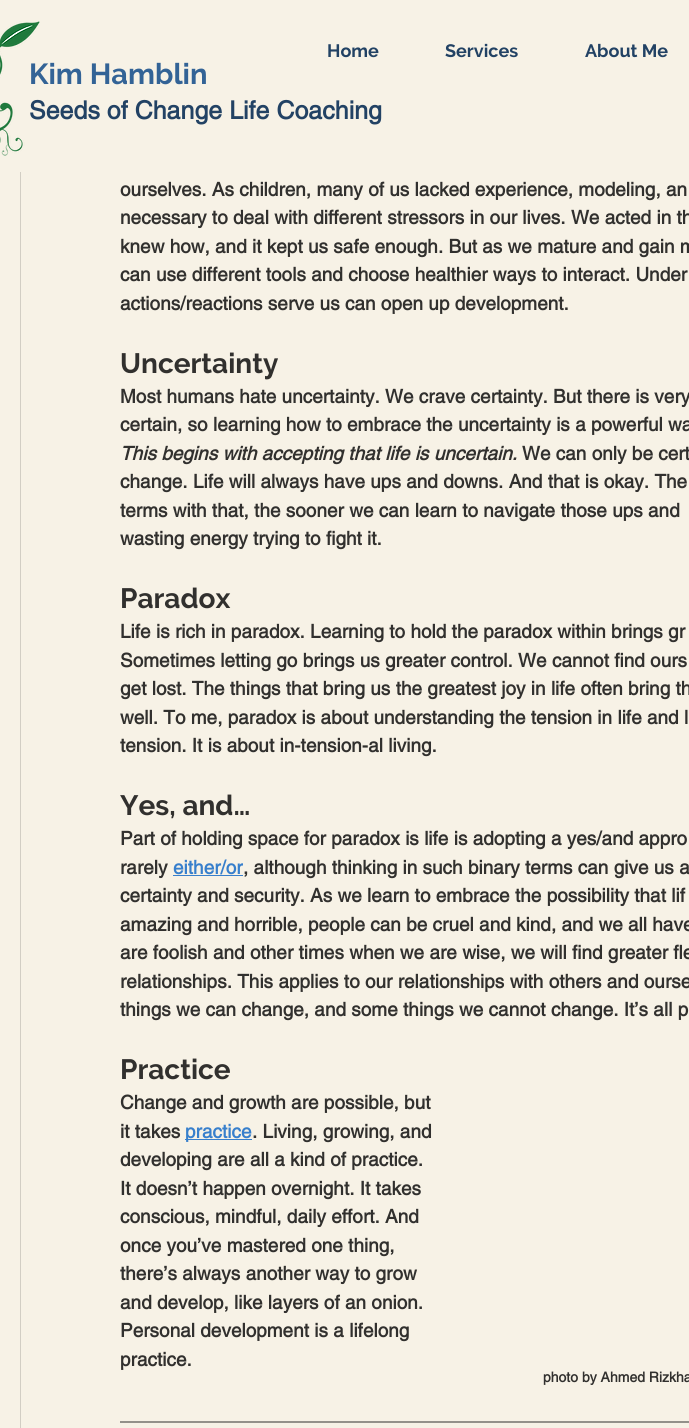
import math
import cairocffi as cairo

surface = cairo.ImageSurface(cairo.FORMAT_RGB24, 689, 1428)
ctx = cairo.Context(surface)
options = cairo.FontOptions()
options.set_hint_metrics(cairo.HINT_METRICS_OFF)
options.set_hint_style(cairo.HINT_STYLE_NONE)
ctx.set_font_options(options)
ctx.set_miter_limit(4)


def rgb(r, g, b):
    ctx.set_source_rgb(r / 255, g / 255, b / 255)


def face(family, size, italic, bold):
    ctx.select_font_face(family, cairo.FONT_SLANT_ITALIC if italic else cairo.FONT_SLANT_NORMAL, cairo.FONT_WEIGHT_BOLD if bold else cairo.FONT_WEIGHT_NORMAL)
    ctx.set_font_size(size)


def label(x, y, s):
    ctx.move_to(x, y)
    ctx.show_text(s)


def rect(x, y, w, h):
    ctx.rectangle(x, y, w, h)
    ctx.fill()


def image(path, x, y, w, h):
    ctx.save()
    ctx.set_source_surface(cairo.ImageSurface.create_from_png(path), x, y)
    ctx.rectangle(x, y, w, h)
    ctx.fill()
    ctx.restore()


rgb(247, 242, 230)
ctx.paint()
ctx.rectangle(20.5, -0.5, 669, 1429)
rgb(210, 206, 196)
ctx.set_line_width(1)
ctx.stroke()
rgb(247, 242, 230)
rect(20, 0, 1, 172)
image('image0.png', 0, 21, 40, 135)
face('Raleway', 18, 0, 1)
rgb(34, 66, 100)
label(327, 57, 'Home')
label(445, 57, 'Services')
label(585, 57, 'About Me')
face('Raleway', 29, 0, 1)
rgb(51, 99, 150)
label(29, 84, 'Kim Hamblin')
face('helvetica', 25, 0, 1)
rgb(34, 66, 100)
label(29, 119, 'Seeds of Change Life Coaching')
face('helvetica', 19, 0, 1)
rgb(49, 48, 46)
label(120, 196, 'ourselves. As children, many of us lacked experience, modeling, an')
label(120, 224, 'necessary to deal with different stressors in our lives. We acted in th')
label(120, 253, 'knew how, and it kept us safe enough. But as we mature and gain m')
label(120, 281, 'can use different tools and choose healthier ways to interact. Under')
label(120, 310, 'actions/reactions serve us can open up development.')
face('Raleway', 28, 0, 1)
label(120, 373, 'Uncertainty')
face('helvetica', 19, 0, 1)
label(120, 403, 'Most humans hate uncertainty. We crave certainty. But there is very')
label(120, 431, 'certain, so learning how to embrace the uncertainty is a powerful wa')
face('helvetica', 19, 1, 1)
label(120, 460, 'This begins with accepting that life is uncertain.')
face('helvetica', 19, 0, 1)
label(522, 460, 'We can only be cert')
label(120, 488, 'change. Life will always have ups and downs. And that is okay. The')
label(120, 517, 'terms with that, the sooner we can learn to navigate those ups and')
label(120, 545, 'wasting energy trying to fight it.')
face('Raleway', 28, 0, 1)
label(120, 608, 'Paradox')
face('helvetica', 19, 0, 1)
label(120, 638, 'Life is rich in paradox. Learning to hold the paradox within brings gr')
label(120, 667, 'Sometimes letting go brings us greater control. We cannot find ours')
label(120, 695, 'get lost. The things that bring us the greatest joy in life often bring th')
label(120, 724, 'well. To me, paradox is about understanding the tension in life and l')
label(120, 752, 'tension. It is about in-tension-al living.')
face('Raleway', 28, 0, 1)
label(120, 815, 'Yes, and…')
face('helvetica', 19, 0, 1)
label(120, 845, 'Part of holding space for paradox is life is adopting a yes/and appro')
label(120, 874, 'rarely')
rgb(55, 127, 204)
label(173, 874, 'either/or')
rect(173, 875, 70, 1)
rgb(49, 48, 46)
label(243, 874, ', although thinking in such binary terms can give us a')
label(120, 902, 'certainty and security. As we learn to embrace the possibility that lif')
label(120, 931, 'amazing and horrible, people can be cruel and kind, and we all have')
label(120, 959, 'are foolish and other times when we are wise, we will find greater fle')
label(120, 988, 'relationships. This applies to our relationships with others and ourse')
label(120, 1016, 'things we can change, and some things we cannot change. It’s all p')
face('Raleway', 28, 0, 1)
label(120, 1079, 'Practice')
face('helvetica', 19, 0, 1)
label(120, 1109, 'Change and growth are possible, but')
label(120, 1138, 'it takes')
rgb(55, 127, 204)
rect(185, 1139, 67, 1)
label(185, 1138, 'practice')
rgb(49, 48, 46)
label(252, 1138, '. Living, growing, and')
label(120, 1166, 'developing are all a kind of practice.')
label(120, 1195, 'It doesn’t happen overnight. It takes')
label(120, 1223, 'conscious, mindful, daily effort. And')
label(120, 1252, 'once you’ve mastered one thing,')
label(120, 1280, 'there’s always another way to grow')
label(120, 1309, 'and develop, like layers of an onion.')
label(120, 1337, 'Personal development is a lifelong')
label(120, 1366, 'practice.')
face('helvetica', 14, 0, 1)
label(543, 1382, 'photo by Ahmed Rizkha')
ctx.new_path()
ctx.move_to(120, 1422)
ctx.line_to(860, 1422)
ctx.stroke()
surface.write_to_png('render.png')
